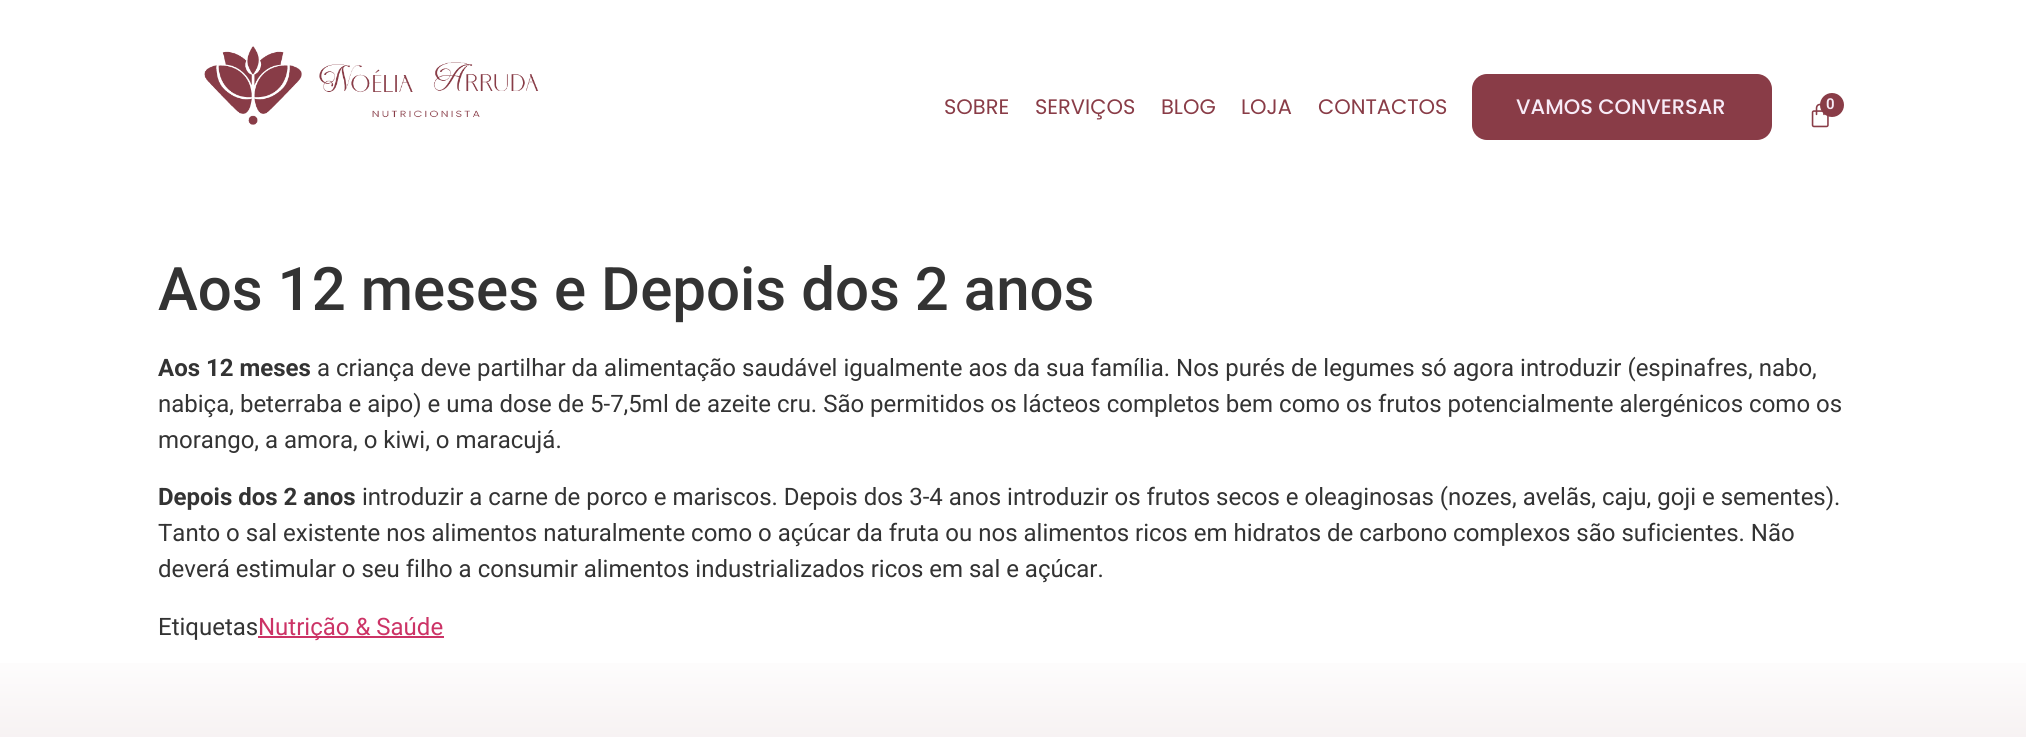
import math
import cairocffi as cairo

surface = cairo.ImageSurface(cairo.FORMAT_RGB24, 2026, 737)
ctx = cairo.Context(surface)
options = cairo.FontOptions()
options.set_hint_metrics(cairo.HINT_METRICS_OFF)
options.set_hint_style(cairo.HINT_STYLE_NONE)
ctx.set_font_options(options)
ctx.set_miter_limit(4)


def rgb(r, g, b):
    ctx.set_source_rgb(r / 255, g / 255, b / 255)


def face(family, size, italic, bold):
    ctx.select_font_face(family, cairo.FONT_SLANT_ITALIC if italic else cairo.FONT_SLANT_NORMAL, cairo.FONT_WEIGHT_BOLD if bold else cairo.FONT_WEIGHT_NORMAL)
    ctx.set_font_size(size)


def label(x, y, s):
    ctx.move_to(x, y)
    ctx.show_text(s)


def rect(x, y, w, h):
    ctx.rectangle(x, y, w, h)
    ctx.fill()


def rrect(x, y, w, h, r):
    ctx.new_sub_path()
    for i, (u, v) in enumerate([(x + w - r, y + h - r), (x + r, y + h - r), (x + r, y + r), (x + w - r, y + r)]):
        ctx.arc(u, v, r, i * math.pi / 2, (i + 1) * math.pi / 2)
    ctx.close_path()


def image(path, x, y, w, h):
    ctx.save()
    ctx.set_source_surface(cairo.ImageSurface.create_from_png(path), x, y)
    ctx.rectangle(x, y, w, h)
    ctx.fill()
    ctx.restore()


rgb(255, 255, 255)
ctx.paint()
image('image0.png', 204, 46, 335, 79)
face('Poppins', 21, 0, 0)
rgb(137, 60, 71)
label(944, 114, 'SOBRE')
label(1035, 114, 'SERVIÇOS')
label(1161, 114, 'BLOG')
label(1241, 114, 'LOJA')
label(1318, 114, 'CONTACTOS')
rrect(1472, 74, 300, 66, 15)
ctx.fill()
face('Poppins Medium', 21, 0, 0)
rgb(247, 235, 247)
label(1516, 114, 'VAMOS CONVERSAR')
image('image1.png', 1811, 103, 18, 25)
rgb(137, 60, 71)
ctx.arc(1832, 105, 12, 0, 2 * math.pi)
ctx.fill()
face('Roboto SemiBold', 15, 0, 0)
rgb(247, 235, 247)
label(1826, 109, '0')
face('Roboto Medium', 60, 0, 0)
rgb(51, 51, 51)
label(158, 310, 'Aos 12 meses e Depois dos 2 anos')
face('Roboto', 24, 0, 1)
label(158, 376, 'Aos 12 meses')
face('Roboto', 24, 0, 0)
label(317, 376, 'a criança deve partilhar da alimentação saudável igualmente aos da sua família. Nos purés de legumes só agora introduzir (espinafres, nabo,')
label(158, 412, 'nabiça, beterraba e aipo) e uma dose de 5-7,5ml de azeite cru. São permitidos os lácteos completos bem como os frutos potencialmente alergénicos como os')
label(158, 448, 'morango, a amora, o kiwi, o maracujá.')
face('Roboto', 24, 0, 1)
label(158, 505, 'Depois dos 2 anos')
face('Roboto', 24, 0, 0)
label(362, 505, 'introduzir a carne de porco e mariscos. Depois dos 3-4 anos introduzir os frutos secos e oleaginosas (nozes, avelãs, caju, goji e sementes).')
label(158, 541, 'Tanto o sal existente nos alimentos naturalmente como o açúcar da fruta ou nos alimentos ricos em hidratos de carbono complexos são suficientes. Não')
label(158, 577, 'deverá estimular o seu filho a consumir alimentos industrializados ricos em sal e açúcar.')
label(158, 635, 'Etiquetas')
rgb(204, 51, 102)
rect(258, 636, 186, 2)
label(258, 635, 'Nutrição & Saúde')
gradient = cairo.LinearGradient(1013, 645, 1013, 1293)
gradient.add_color_stop_rgba(0, 1, 1, 1, 1)
gradient.add_color_stop_rgba(1, 0.769, 0.643, 0.655, 1)
ctx.set_source(gradient)
rect(0, 663, 2026, 74)
surface.write_to_png('render.png')
